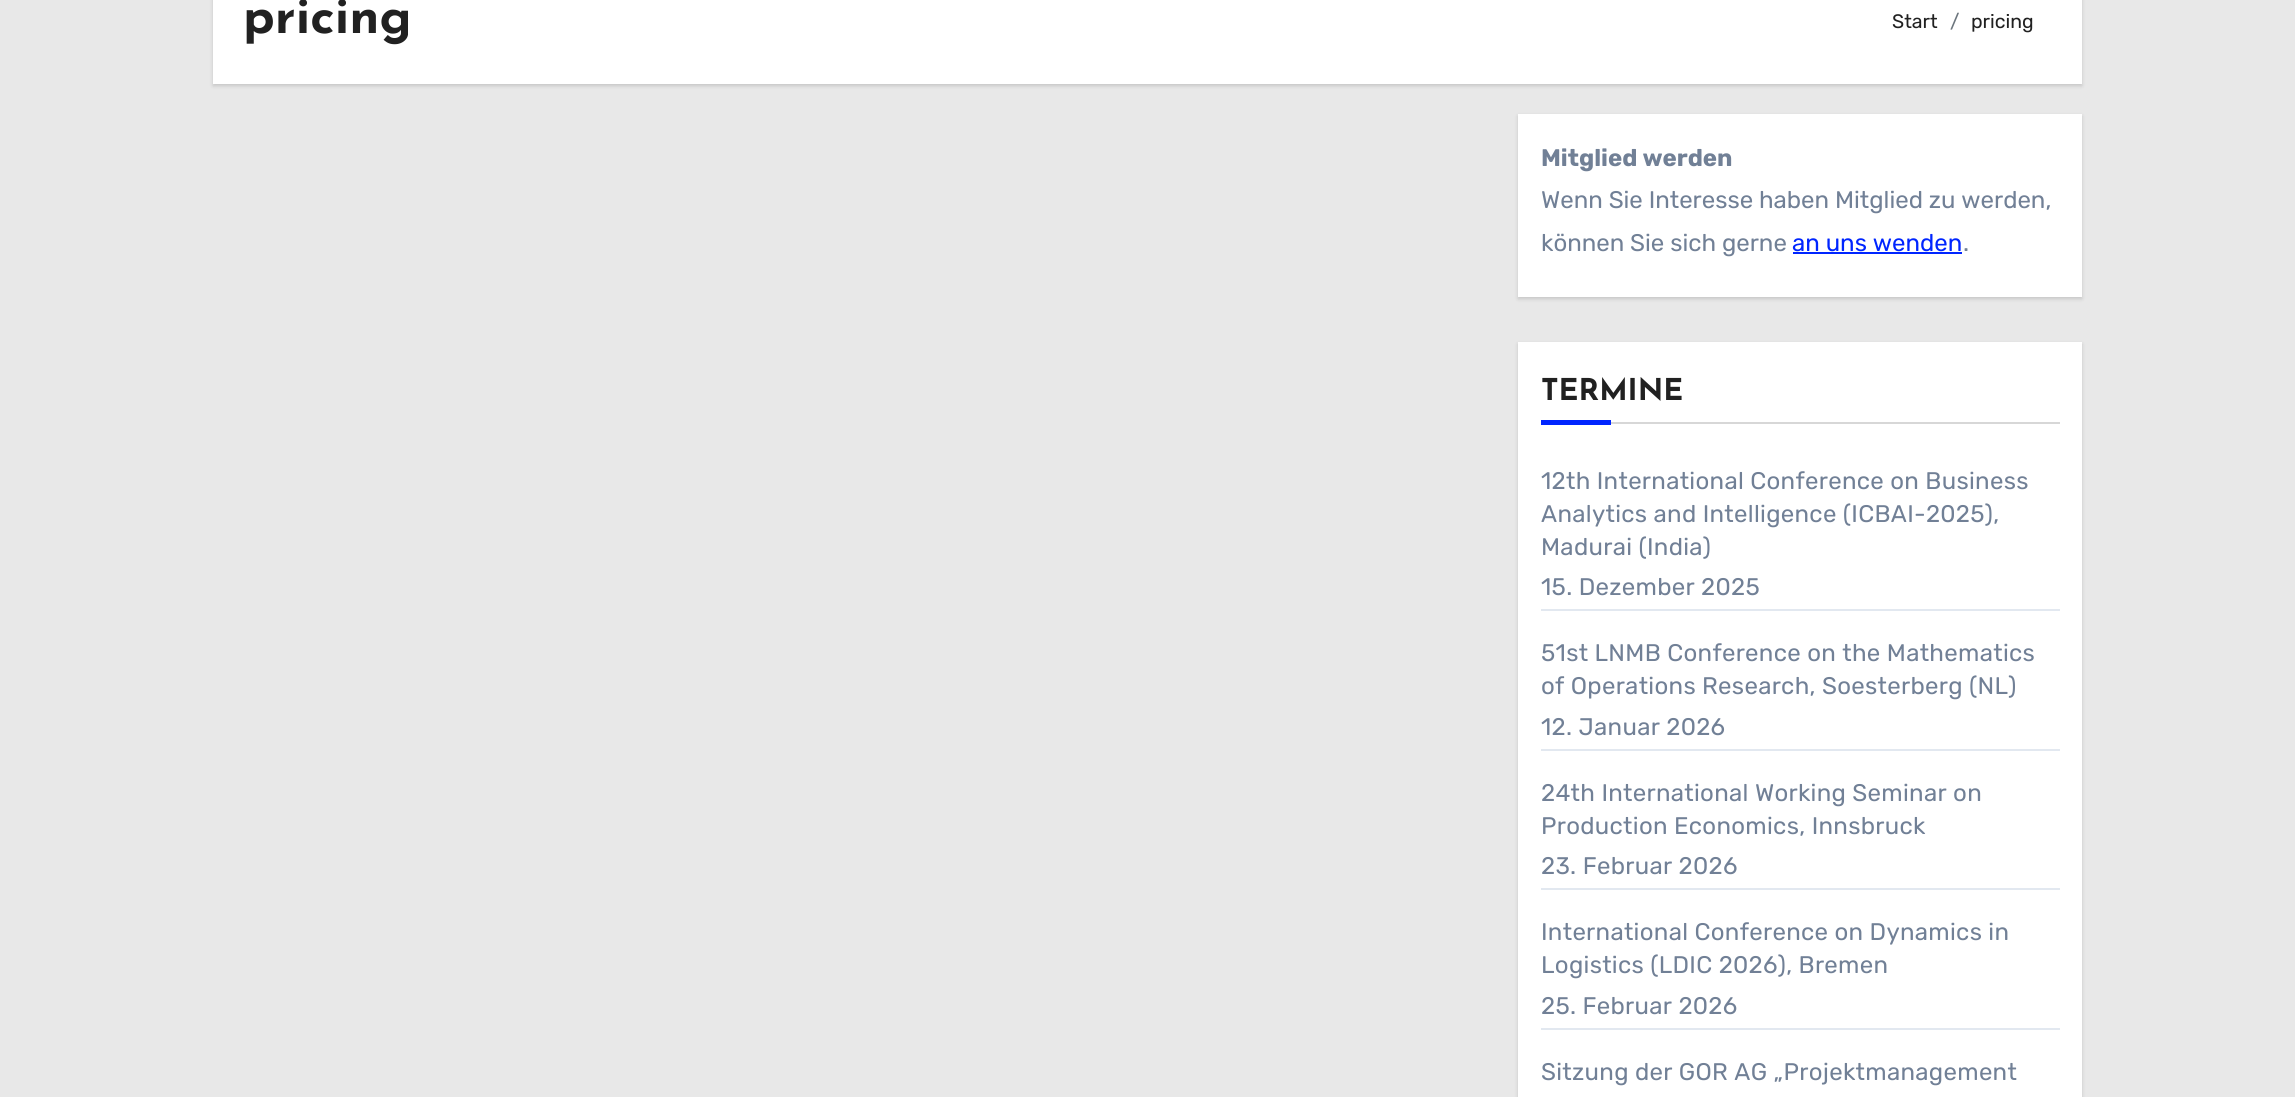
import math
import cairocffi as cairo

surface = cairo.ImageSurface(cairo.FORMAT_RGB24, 2295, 1097)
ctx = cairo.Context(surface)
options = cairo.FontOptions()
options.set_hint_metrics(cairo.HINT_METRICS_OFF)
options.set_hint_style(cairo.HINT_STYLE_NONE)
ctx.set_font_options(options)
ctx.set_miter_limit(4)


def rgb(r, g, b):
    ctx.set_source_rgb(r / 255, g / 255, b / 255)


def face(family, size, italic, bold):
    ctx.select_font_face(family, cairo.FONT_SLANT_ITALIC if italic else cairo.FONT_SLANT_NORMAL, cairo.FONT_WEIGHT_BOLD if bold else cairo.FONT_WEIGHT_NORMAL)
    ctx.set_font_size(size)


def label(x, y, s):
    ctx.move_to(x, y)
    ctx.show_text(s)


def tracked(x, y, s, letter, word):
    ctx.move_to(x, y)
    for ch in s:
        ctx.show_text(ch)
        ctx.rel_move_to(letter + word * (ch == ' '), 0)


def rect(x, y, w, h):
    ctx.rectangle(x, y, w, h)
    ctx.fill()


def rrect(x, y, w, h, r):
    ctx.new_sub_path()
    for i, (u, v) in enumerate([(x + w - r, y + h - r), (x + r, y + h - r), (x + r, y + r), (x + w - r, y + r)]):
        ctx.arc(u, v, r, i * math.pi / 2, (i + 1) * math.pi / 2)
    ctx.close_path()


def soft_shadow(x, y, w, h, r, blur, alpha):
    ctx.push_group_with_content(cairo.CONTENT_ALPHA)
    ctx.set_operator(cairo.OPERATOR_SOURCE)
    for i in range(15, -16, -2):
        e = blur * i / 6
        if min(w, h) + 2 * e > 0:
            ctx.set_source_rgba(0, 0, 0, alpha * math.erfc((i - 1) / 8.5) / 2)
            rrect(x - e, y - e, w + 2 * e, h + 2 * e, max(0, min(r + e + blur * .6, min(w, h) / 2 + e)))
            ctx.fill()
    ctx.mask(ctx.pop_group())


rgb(232, 232, 232)
ctx.paint()
rgb(0, 0, 0)
soft_shadow(213, -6, 1869, 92, 0, 2, 0.15)
rgb(255, 255, 255)
rect(213, 0, 1869, 84)
face('Josefin Sans', 51, 0, 1)
rgb(33, 33, 33)
label(243, 33, 'pricing')
face('Rubik Light', 19.5, 0, 0)
label(1892, 28, 'Start')
rgb(108, 117, 125)
label(1950, 28, '/')
rgb(33, 33, 33)
label(1971, 28, 'pricing')
rgb(0, 0, 0)
soft_shadow(1518, 116, 564, 183, 0, 2, 0.15)
rgb(255, 255, 255)
rect(1518, 114, 564, 183)
face('Rubik', 24, 0, 1)
rgb(113, 128, 150)
label(1541, 166, 'Mitglied werden')
face('Rubik Light', 24, 0, 0)
label(1541, 208, 'Wenn Sie Interesse haben Mitglied zu werden,')
label(1541, 251, 'können Sie sich gerne')
rgb(0, 37, 255)
label(1792, 251, 'an uns wenden')
rect(1793, 252, 169, 2)
rgb(113, 128, 150)
label(1963, 251, '.')
rgb(0, 0, 0)
soft_shadow(1518, 344, 564, 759, 0, 2, 0.15)
rgb(255, 255, 255)
rect(1518, 342, 564, 755)
rgb(215, 215, 215)
rect(1611, 422, 449, 2)
face('Josefin Sans', 30, 0, 1)
rgb(33, 33, 33)
label(1541, 400, 'TERMINE')
rgb(0, 37, 255)
rect(1541, 420, 70, 5)
rgb(226, 232, 240)
rect(1541, 609, 519, 2)
face('Rubik Light', 24, 0, 0)
rgb(113, 128, 150)
tracked(1541, 489, '12th International Conference on Business', 0.3, 0)
tracked(1541, 522, 'Analytics and Intelligence (ICBAI-2025),', 0.3, 0)
tracked(1541, 555, 'Madurai (India)', 0.3, 0)
tracked(1541, 595, '15. Dezember 2025', 0.3, 0)
rgb(226, 232, 240)
rect(1541, 749, 519, 2)
rgb(113, 128, 150)
tracked(1541, 661, '51st LNMB Conference on the Mathematics', 0.3, 0)
tracked(1541, 694, 'of Operations Research, Soesterberg (NL)', 0.3, 0)
tracked(1541, 735, '12. Januar 2026', 0.3, 0)
rgb(226, 232, 240)
rect(1541, 888, 519, 2)
rgb(113, 128, 150)
tracked(1541, 801, '24th International Working Seminar on', 0.3, 0)
tracked(1541, 834, 'Production Economics, Innsbruck', 0.3, 0)
tracked(1541, 874, '23. Februar 2026', 0.3, 0)
rgb(226, 232, 240)
rect(1541, 1028, 519, 2)
rgb(113, 128, 150)
tracked(1541, 940, 'International Conference on Dynamics in', 0.3, 0)
tracked(1541, 973, 'Logistics (LDIC 2026), Bremen', 0.3, 0)
tracked(1541, 1014, '25. Februar 2026', 0.3, 0)
tracked(1541, 1080, 'Sitzung der GOR AG „Projektmanagement', 0.3, 0)
surface.write_to_png('render.png')
